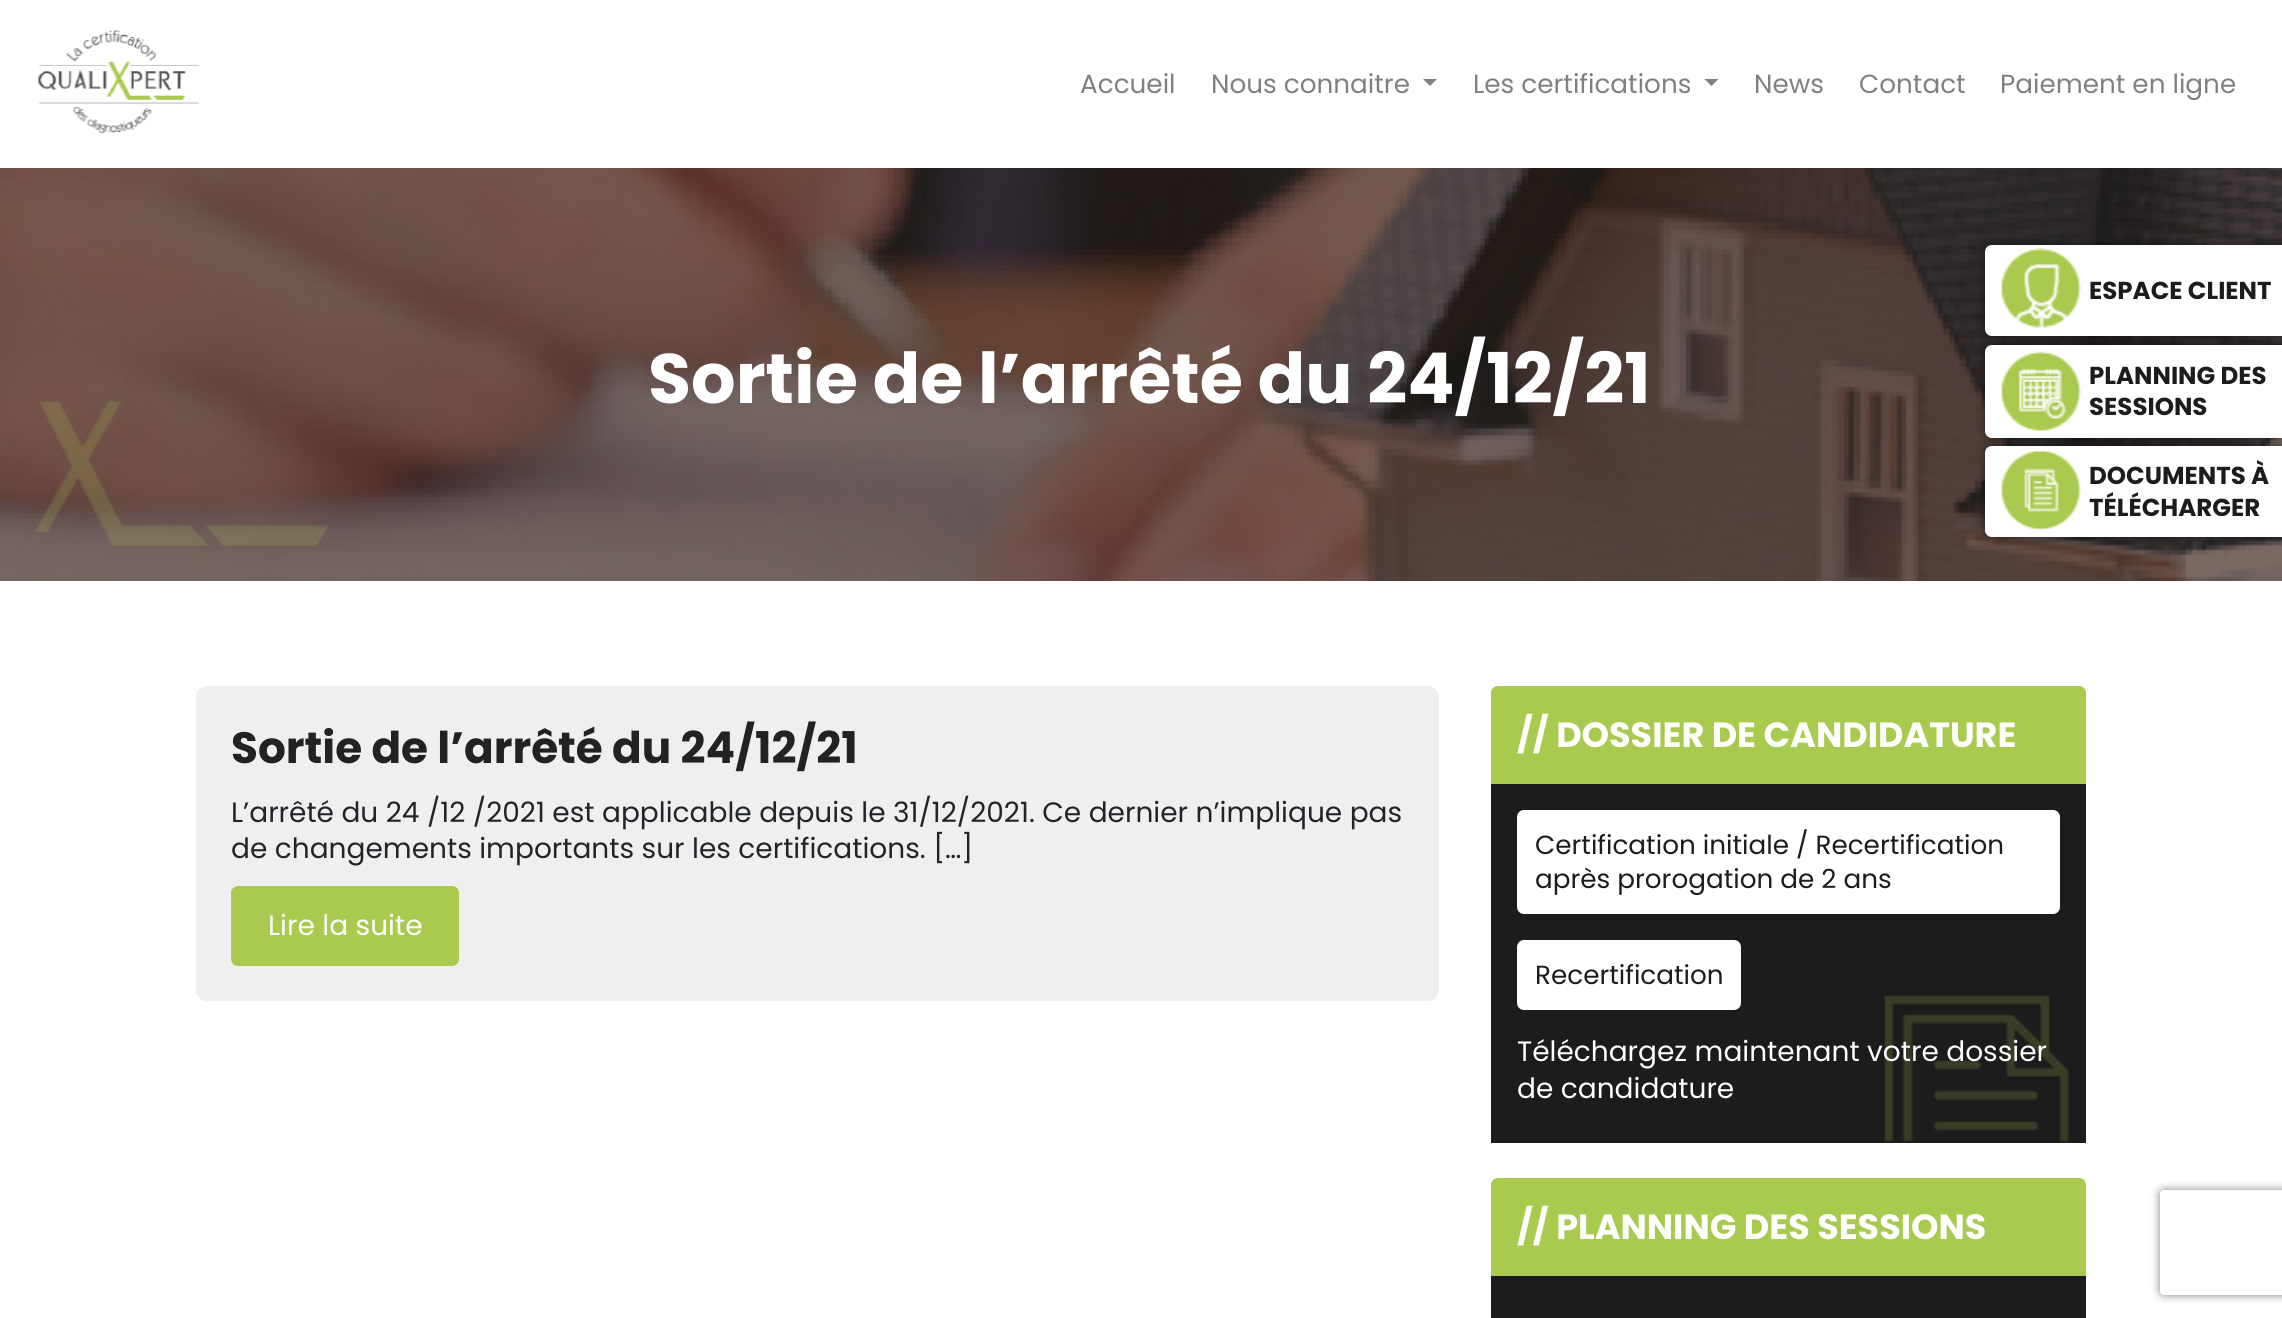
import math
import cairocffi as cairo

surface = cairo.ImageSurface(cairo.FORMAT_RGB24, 2282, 1318)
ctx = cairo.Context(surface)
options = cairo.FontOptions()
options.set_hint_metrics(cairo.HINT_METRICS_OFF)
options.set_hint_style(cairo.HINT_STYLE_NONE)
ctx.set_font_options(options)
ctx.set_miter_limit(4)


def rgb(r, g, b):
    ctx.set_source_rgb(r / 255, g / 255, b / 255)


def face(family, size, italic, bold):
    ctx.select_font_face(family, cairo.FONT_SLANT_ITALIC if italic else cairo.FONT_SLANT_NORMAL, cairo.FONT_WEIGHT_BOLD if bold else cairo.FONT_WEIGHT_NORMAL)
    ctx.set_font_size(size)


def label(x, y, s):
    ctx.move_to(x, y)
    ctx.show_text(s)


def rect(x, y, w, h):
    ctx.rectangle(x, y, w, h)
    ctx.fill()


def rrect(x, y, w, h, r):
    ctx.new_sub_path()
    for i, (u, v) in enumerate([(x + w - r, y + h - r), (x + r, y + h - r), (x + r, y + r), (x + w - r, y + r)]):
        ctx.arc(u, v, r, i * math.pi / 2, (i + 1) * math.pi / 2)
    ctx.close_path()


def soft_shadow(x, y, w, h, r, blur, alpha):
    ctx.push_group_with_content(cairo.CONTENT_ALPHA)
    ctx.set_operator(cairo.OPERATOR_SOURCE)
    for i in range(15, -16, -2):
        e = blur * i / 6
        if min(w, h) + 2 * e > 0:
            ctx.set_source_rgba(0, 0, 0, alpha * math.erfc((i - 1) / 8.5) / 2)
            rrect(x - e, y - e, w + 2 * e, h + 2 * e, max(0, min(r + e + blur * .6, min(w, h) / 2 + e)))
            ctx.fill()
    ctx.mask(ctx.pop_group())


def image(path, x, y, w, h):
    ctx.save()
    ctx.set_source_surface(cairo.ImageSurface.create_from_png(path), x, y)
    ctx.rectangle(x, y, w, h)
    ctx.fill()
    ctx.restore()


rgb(255, 255, 255)
ctx.paint()
image('image0.png', 38, 29, 162, 105)
face('Poppins', 26.25, 0, 0)
rgb(128, 128, 128)
label(1080, 93, 'Accueil')
label(1211, 93, 'Nous connaitre')
ctx.new_path()
ctx.move_to(1423, 79)
ctx.line_to(1437, 79)
ctx.line_to(1430, 86)
ctx.close_path()
ctx.fill()
label(1473, 93, 'Les certifications')
ctx.new_path()
ctx.move_to(1704.5, 79)
ctx.line_to(1718.5, 79)
ctx.line_to(1711.5, 86)
ctx.close_path()
ctx.fill()
label(1754, 93, 'News')
label(1859, 93, 'Contact')
label(2000, 93, 'Paiement en ligne')
image('image1.png', 0, 168, 2282, 413)
image('image2.png', 35, 401, 294, 145)
face('Poppins', 70, 0, 1)
rgb(255, 255, 255)
label(648, 403, 'Sortie de l’arrêté du 24/12/21')
rgb(0, 0, 0)
soft_shadow(1985, 245, 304, 91, 7, 4.5, 0.5)
rgb(255, 255, 255)
ctx.new_path()
ctx.move_to(1992, 245)
ctx.line_to(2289, 245)
ctx.line_to(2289, 336)
ctx.line_to(1992, 336)
ctx.curve_to(1988, 336, 1985, 333, 1985, 329)
ctx.line_to(1985, 252)
ctx.curve_to(1985, 248, 1988, 245, 1992, 245)
ctx.close_path()
ctx.fill()
image('image3.png', 2001, 248, 80, 80)
face('Poppins', 24.5, 0, 1)
rgb(28, 28, 28)
label(2089, 299, 'ESPACE CLIENT')
rgb(0, 0, 0)
soft_shadow(1985, 345, 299, 93, 7, 4.5, 0.5)
rgb(255, 255, 255)
ctx.new_path()
ctx.move_to(1992, 345)
ctx.line_to(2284, 345)
ctx.line_to(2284, 438)
ctx.line_to(1992, 438)
ctx.curve_to(1988, 438, 1985, 435, 1985, 431)
ctx.line_to(1985, 352)
ctx.curve_to(1985, 348, 1988, 345, 1992, 345)
ctx.close_path()
ctx.fill()
image('image4.png', 2001, 351, 80, 80)
rgb(28, 28, 28)
label(2089, 384, 'PLANNING DES')
label(2089, 415, 'SESSIONS')
rgb(0, 0, 0)
soft_shadow(1985, 446, 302, 91, 7, 4.5, 0.5)
rgb(255, 255, 255)
ctx.new_path()
ctx.move_to(1992, 446)
ctx.line_to(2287, 446)
ctx.line_to(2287, 537)
ctx.line_to(1992, 537)
ctx.curve_to(1988, 537, 1985, 534, 1985, 530)
ctx.line_to(1985, 453)
ctx.curve_to(1985, 449, 1988, 446, 1992, 446)
ctx.close_path()
ctx.fill()
image('image5.png', 2001, 451, 80, 80)
rgb(28, 28, 28)
label(2089, 484, 'DOCUMENTS À')
label(2089, 516, 'TÉLÉCHARGER')
rgb(239, 239, 239)
rrect(196, 686, 1243, 315, 11)
ctx.fill()
face('Poppins', 43.75, 0, 1)
rgb(34, 34, 34)
label(231, 763, 'Sortie de l’arrêté du 24/12/21')
face('Poppins', 28, 0, 0)
rgb(33, 37, 41)
label(231, 822, 'L’arrêté du 24 /12 /2021 est applicable depuis le 31/12/2021. Ce dernier n’implique pas')
label(231, 858, 'de changements importants sur les certifications. […]')
rgb(170, 202, 79)
rrect(231, 886, 228, 80, 7)
ctx.fill()
rgb(255, 255, 255)
label(268, 935, 'Lire la suite')
rgb(168, 202, 78)
ctx.new_path()
ctx.move_to(1498, 686)
ctx.line_to(2079, 686)
ctx.curve_to(2083, 686, 2086, 689, 2086, 693)
ctx.line_to(2086, 784)
ctx.line_to(1491, 784)
ctx.line_to(1491, 693)
ctx.curve_to(1491, 689, 1494, 686, 1498, 686)
ctx.close_path()
ctx.fill()
face('Poppins', 35, 0, 1)
rgb(255, 255, 255)
label(1517, 747, '// DOSSIER DE CANDIDATURE')
rgb(28, 28, 28)
rect(1491, 784, 595, 359)
image('image6.png', 1884, 995, 185, 147)
rgb(255, 255, 255)
rrect(1517, 810, 543, 104, 7)
ctx.fill()
face('Poppins', 26.25, 0, 0)
rgb(28, 28, 28)
label(1535, 854, 'Certification initiale / Recertification')
label(1535, 888, 'après prorogation de 2 ans')
rgb(255, 255, 255)
rrect(1517, 940, 224, 70, 7)
ctx.fill()
rgb(28, 28, 28)
label(1535, 984, 'Recertification')
face('Poppins', 28, 0, 0)
rgb(255, 255, 255)
label(1517, 1061, 'Téléchargez maintenant votre dossier')
label(1517, 1098, 'de candidature')
rgb(168, 202, 78)
ctx.new_path()
ctx.move_to(1498, 1178)
ctx.line_to(2079, 1178)
ctx.curve_to(2083, 1178, 2086, 1181, 2086, 1185)
ctx.line_to(2086, 1276)
ctx.line_to(1491, 1276)
ctx.line_to(1491, 1185)
ctx.curve_to(1491, 1181, 1494, 1178, 1498, 1178)
ctx.close_path()
ctx.fill()
face('Poppins', 35, 0, 1)
rgb(255, 255, 255)
label(1517, 1239, '// PLANNING DES SESSIONS')
rgb(28, 28, 28)
rect(1491, 1276, 595, 42)
ctx.save()
ctx.set_fill_rule(cairo.FILL_RULE_EVEN_ODD)
ctx.new_path()
ctx.move_to(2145, 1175)
ctx.line_to(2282, 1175)
ctx.line_to(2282, 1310)
ctx.line_to(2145, 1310)
ctx.close_path()
ctx.move_to(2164, 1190)
ctx.line_to(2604, 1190)
ctx.curve_to(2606, 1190, 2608, 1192, 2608, 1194)
ctx.line_to(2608, 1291)
ctx.curve_to(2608, 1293, 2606, 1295, 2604, 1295)
ctx.line_to(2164, 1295)
ctx.curve_to(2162, 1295, 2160, 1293, 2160, 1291)
ctx.line_to(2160, 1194)
ctx.curve_to(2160, 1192, 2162, 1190, 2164, 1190)
ctx.close_path()
ctx.clip()
rgb(128, 128, 128)
soft_shadow(2160, 1190, 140, 105, 4, 4.5, 1)
ctx.restore()
surface.write_to_png('render.png')
